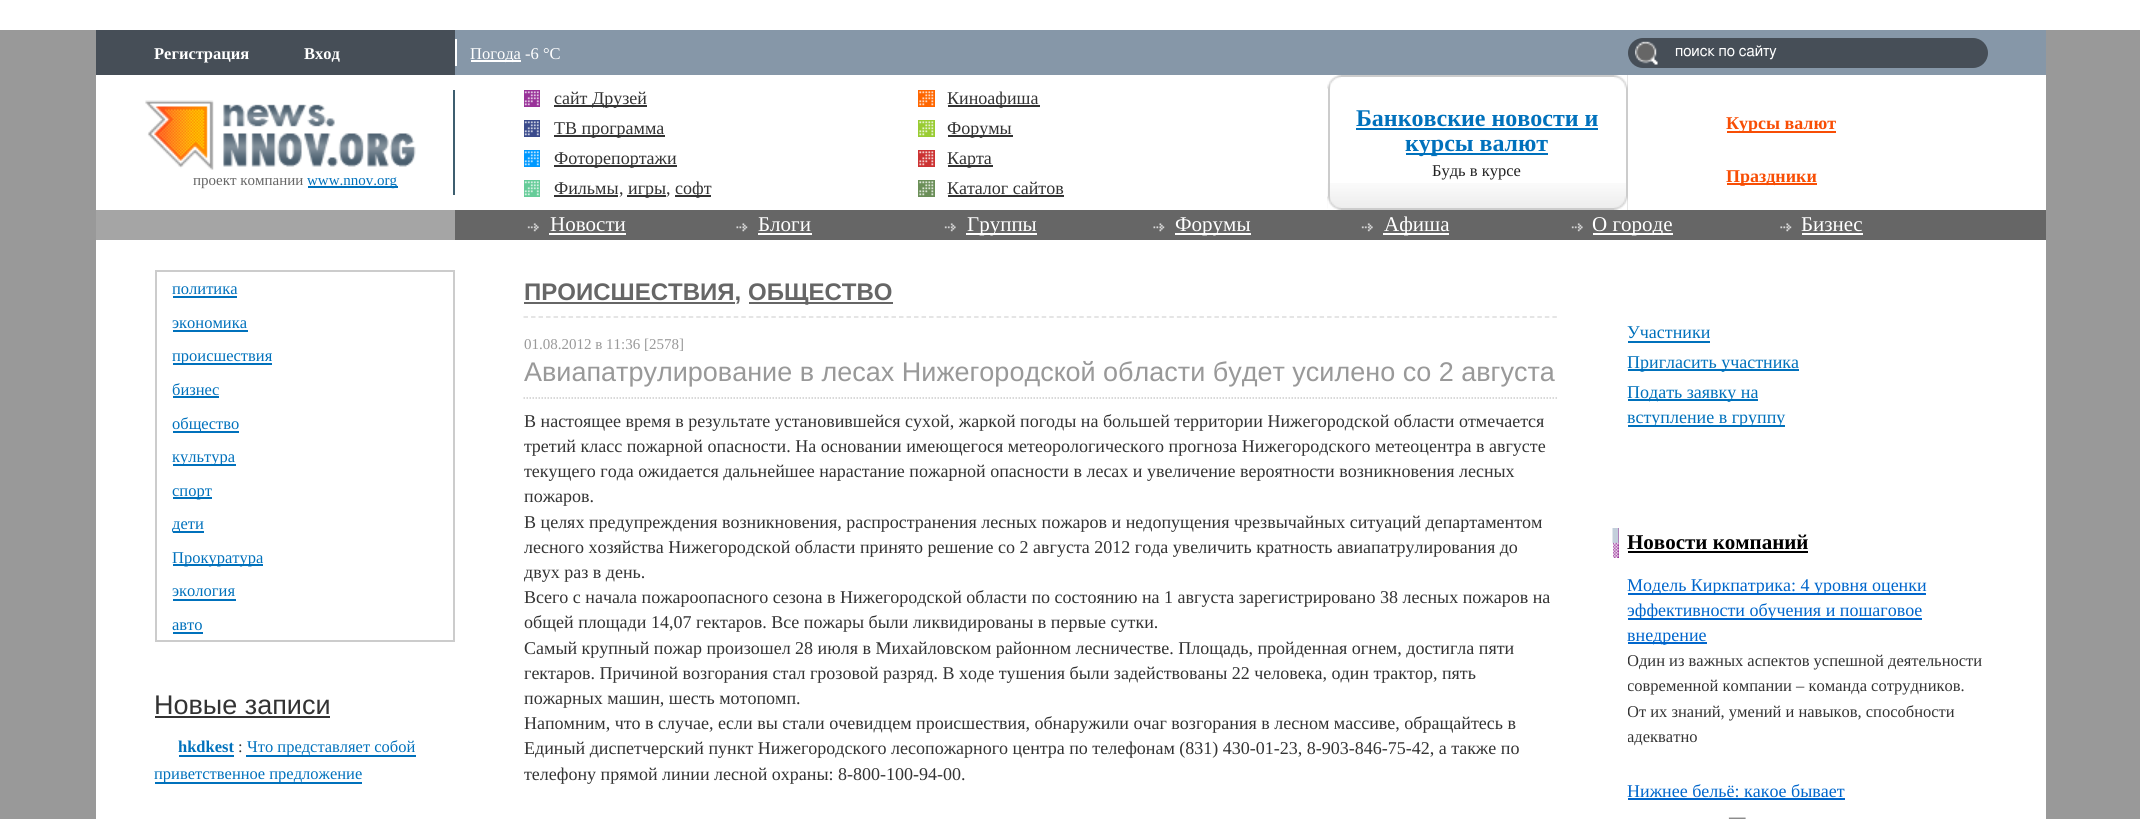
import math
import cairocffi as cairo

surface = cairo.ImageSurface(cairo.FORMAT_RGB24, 2140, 819)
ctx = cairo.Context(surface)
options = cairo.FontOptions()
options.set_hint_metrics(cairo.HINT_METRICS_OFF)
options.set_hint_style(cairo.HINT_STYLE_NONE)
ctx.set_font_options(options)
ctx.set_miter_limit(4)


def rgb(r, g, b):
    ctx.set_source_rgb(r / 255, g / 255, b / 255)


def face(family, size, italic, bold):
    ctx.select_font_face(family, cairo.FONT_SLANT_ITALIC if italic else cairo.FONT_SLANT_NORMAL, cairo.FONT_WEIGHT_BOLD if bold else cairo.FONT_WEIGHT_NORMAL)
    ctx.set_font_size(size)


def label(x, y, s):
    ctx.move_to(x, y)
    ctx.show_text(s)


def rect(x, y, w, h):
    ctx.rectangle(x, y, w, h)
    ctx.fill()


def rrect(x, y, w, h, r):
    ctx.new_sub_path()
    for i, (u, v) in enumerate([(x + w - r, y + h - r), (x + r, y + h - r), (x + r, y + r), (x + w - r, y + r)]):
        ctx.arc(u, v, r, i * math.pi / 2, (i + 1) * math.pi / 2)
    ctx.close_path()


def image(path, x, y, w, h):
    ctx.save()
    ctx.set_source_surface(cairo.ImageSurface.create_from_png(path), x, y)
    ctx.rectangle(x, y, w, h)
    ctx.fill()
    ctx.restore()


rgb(255, 255, 255)
ctx.paint()
rgb(153, 153, 153)
rect(0, 30, 2140, 789)
rgb(255, 255, 255)
rect(96, 75, 1950, 744)
rgb(134, 151, 168)
rect(455, 30, 1591, 45)
rgb(70, 78, 87)
rect(96, 30, 359, 45)
face('Liberation Serif', 16.5, 0, 1)
rgb(255, 255, 255)
label(154, 59, 'Регистрация')
label(304, 59, 'Вход')
rect(455, 39, 2, 27)
rect(471, 60, 50, 2)
face('Liberation Serif', 16.5, 0, 0)
label(470, 59, 'Погода -6 °C')
rgb(70, 78, 87)
rrect(1628, 38, 360, 30, 15)
ctx.fill()
image('image0.png', 1635, 41, 23, 24)
face('FreeSans', 15.25, 0, 0)
rgb(255, 255, 255)
label(1675, 56, 'поиск по сайту')
image('image1.png', 145, 100, 271, 70)
rgb(61, 94, 111)
rect(453, 90, 2, 105)
face('Liberation Serif', 15, 0, 0)
rgb(102, 102, 102)
label(193, 185, 'проект компании')
rgb(0, 113, 188)
rect(308, 186, 90, 2)
label(307, 185, 'www.nnov.org')
rgb(153, 51, 153)
rect(524, 90, 16, 17)
image('image2.png', 524, 91, 15, 15)
rgb(51, 51, 51)
rect(554, 105, 93, 2)
face('Liberation Serif', 18, 0, 0)
label(554, 104, 'сайт Друзей')
rgb(255, 102, 0)
rect(918, 90, 17, 17)
image('image3.png', 919, 91, 15, 15)
rgb(51, 51, 51)
rect(948, 105, 92, 2)
label(947, 104, 'Киноафиша')
rgb(59, 75, 140)
rect(524, 120, 16, 17)
image('image4.png', 524, 121, 15, 15)
rgb(51, 51, 51)
rect(554, 135, 111, 2)
label(554, 134, 'ТВ программа')
rgb(153, 204, 51)
rect(918, 120, 17, 17)
image('image5.png', 919, 121, 15, 15)
rgb(51, 51, 51)
rect(948, 135, 65, 2)
label(947, 134, 'Форумы')
rgb(0, 153, 255)
rect(524, 150, 16, 17)
image('image6.png', 524, 151, 15, 15)
rgb(51, 51, 51)
rect(554, 165, 123, 2)
label(554, 164, 'Фоторепортажи')
rgb(204, 51, 51)
rect(918, 150, 17, 17)
image('image7.png', 919, 151, 15, 15)
rgb(51, 51, 51)
rect(948, 165, 45, 2)
label(947, 164, 'Карта')
rgb(102, 204, 153)
rect(524, 180, 16, 17)
image('image8.png', 524, 181, 15, 15)
rgb(51, 51, 51)
label(554, 194, 'Фильмы')
rect(554, 195, 64, 2)
label(619, 194, ',')
rect(627, 195, 39, 2)
label(628, 194, 'игры')
label(666, 194, ',')
rect(675, 195, 36, 2)
label(675, 194, 'софт')
rgb(107, 143, 89)
rect(918, 180, 17, 17)
image('image9.png', 919, 181, 15, 15)
rgb(51, 51, 51)
label(947, 194, 'Каталог сайтов')
rect(948, 195, 116, 2)
image('image10.png', 1327, 183, 299, 26)
ctx.rectangle(1329, 76, 298, 133)
rgb(204, 204, 204)
ctx.stroke()
image('image11.png', 1327, 75, 14, 14)
image('image12.png', 1614, 75, 14, 14)
face('Liberation Serif', 24, 0, 1)
rgb(0, 113, 188)
label(1356, 126, 'Банковские новости и')
rect(1356, 128, 242, 2)
rect(1406, 153, 142, 2)
label(1405, 151, 'курсы валют')
face('Liberation Serif', 16.5, 0, 0)
rgb(34, 34, 34)
label(1432, 176, 'Будь в курсе')
image('image13.png', 1327, 196, 14, 14)
image('image14.png', 1614, 196, 14, 14)
rgb(248, 78, 5)
rect(1727, 131, 109, 2)
face('Liberation Serif', 18, 0, 1)
label(1726, 129, 'Курсы валют')
rect(1727, 183, 90, 2)
label(1726, 182, 'Праздники')
rgb(102, 102, 102)
rect(455, 210, 1591, 30)
rgb(165, 165, 165)
rect(96, 210, 359, 30)
image('image15.png', 527, 223, 12, 9)
face('Liberation Serif', 21, 0, 0)
rgb(255, 255, 255)
label(550, 231, 'Новости')
rect(549, 233, 77, 2)
image('image16.png', 736, 223, 12, 9)
label(758, 231, 'Блоги')
rect(758, 233, 54, 2)
image('image17.png', 944, 223, 12, 9)
rect(966, 233, 71, 2)
label(967, 231, 'Группы')
image('image16.png', 1153, 223, 12, 9)
rect(1175, 233, 76, 2)
label(1175, 231, 'Форумы')
image('image15.png', 1361, 223, 12, 9)
rect(1383, 233, 66, 2)
label(1384, 231, 'Афиша')
image('image17.png', 1571, 223, 12, 9)
rect(1593, 233, 80, 2)
label(1592, 231, 'О городе')
image('image18.png', 1780, 223, 12, 9)
label(1801, 231, 'Бизнес')
rect(1802, 233, 61, 2)
ctx.rectangle(156, 271, 298, 370)
rgb(204, 204, 204)
ctx.stroke()
face('Liberation Serif', 16.5, 0, 0)
rgb(0, 113, 188)
label(172, 294, 'политика')
rect(173, 296, 64, 2)
label(172, 328, 'экономика')
rect(173, 330, 75, 2)
rect(173, 363, 99, 2)
label(172, 361, 'происшествия')
label(172, 395, 'бизнес')
rect(173, 396, 46, 2)
rect(173, 431, 66, 2)
label(172, 429, 'общество')
rect(173, 464, 63, 2)
label(172, 462, 'культура')
rect(173, 497, 39, 2)
label(172, 496, 'спорт')
rect(173, 531, 31, 2)
label(172, 529, 'дети')
rect(173, 564, 90, 2)
label(172, 563, 'Прокуратура')
label(172, 596, 'экология')
rect(173, 599, 63, 2)
label(172, 630, 'авто')
rect(173, 632, 30, 2)
face('Liberation Sans', 27, 0, 0)
rgb(51, 51, 51)
label(154, 714, 'Новые записи')
rect(155, 716, 175, 2)
face('Liberation Serif', 16.5, 0, 1)
rgb(0, 113, 188)
label(178, 752, 'hkdkest')
rect(179, 755, 55, 2)
face('Liberation Serif', 16.5, 0, 0)
rgb(51, 51, 51)
label(238, 752, ':')
rgb(0, 113, 188)
rect(246, 755, 170, 2)
label(247, 752, 'Что представляет собой')
rect(155, 782, 207, 2)
label(154, 779, 'приветственное предложение')
ctx.new_path()
ctx.move_to(523.5, 317)
ctx.line_to(1557, 317)
rgb(221, 221, 221)
ctx.set_line_width(1.5)
ctx.set_dash([4.5, 3.01])
ctx.stroke()
rgb(102, 102, 102)
rect(524, 302, 211, 2)
face('Liberation Sans', 24, 0, 1)
label(524, 300, 'ПРОИСШЕСТВИЯ,')
rect(749, 302, 144, 2)
label(748, 300, 'ОБЩЕСТВО')
ctx.new_path()
ctx.move_to(523.5, 398)
ctx.line_to(1557, 398)
rgb(204, 204, 204)
ctx.set_dash([1.5, 1.5])
ctx.stroke()
face('Liberation Serif', 15, 0, 0)
rgb(153, 153, 153)
label(524, 349, '01.08.2012 в 11:36 [2578]')
face('Liberation Sans', 27, 0, 0)
label(524, 381, 'Авиапатрулирование в лесах Нижегородской области будет усилено со 2 августа')
face('Liberation Serif', 18, 0, 0)
rgb(51, 51, 51)
label(524, 427, 'В настоящее время в результате установившейся сухой, жаркой погоды на большей территории Нижегородской области отмечается')
label(524, 452, 'третий класс пожарной опасности. На основании имеющегося метеорологического прогноза Нижегородского метеоцентра в августе')
label(524, 477, 'текущего года ожидается дальнейшее нарастание пожарной опасности в лесах и увеличение вероятности возникновения лесных')
label(524, 502, 'пожаров.')
label(524, 528, 'В целях предупреждения возникновения, распространения лесных пожаров и недопущения чрезвычайных ситуаций департаментом')
label(524, 553, 'лесного хозяйства Нижегородской области принято решение со 2 августа 2012 года увеличить кратность авиапатрулирования до')
label(524, 578, 'двух раз в день.')
label(524, 603, 'Всего с начала пожароопасного сезона в Нижегородской области по состоянию на 1 августа зарегистрировано 38 лесных пожаров на')
label(524, 628, 'общей площади 14,07 гектаров. Все пожары были ликвидированы в первые сутки.')
label(524, 654, 'Самый крупный пожар произошел 28 июля в Михайловском районном лесничестве. Площадь, пройденная огнем, достигла пяти')
label(524, 679, 'гектаров. Причиной возгорания стал грозовой разряд. В ходе тушения были задействованы 22 человека, один трактор, пять')
label(524, 704, 'пожарных машин, шесть мотопомп.')
label(524, 729, 'Напомним, что в случае, если вы стали очевидцем происшествия, обнаружили очаг возгорания в лесном массиве, обращайтесь в')
label(524, 754, 'Единый диспетчерский пункт Нижегородского лесопожарного центра по телефонам (831) 430-01-23, 8-903-846-75-42, а также по')
label(524, 780, 'телефону прямой линии лесной охраны: 8-800-100-94-00.')
rgb(0, 113, 188)
label(1627, 338, 'Участники')
rect(1628, 341, 82, 2)
rect(1628, 369, 171, 2)
label(1627, 368, 'Пригласить участника')
rect(1628, 399, 130, 2)
label(1627, 398, 'Подать заявку на')
rect(1628, 425, 157, 2)
label(1627, 423, 'вступление в группу')
rgb(153, 51, 153)
rect(1613, 528, 6, 30)
image('image19.png', 1612, 528, 7, 30)
face('Liberation Serif', 21, 0, 1)
rgb(0, 0, 0)
label(1627, 549, 'Новости компаний')
rect(1628, 551, 180, 2)
rgb(0, 102, 204)
rect(1628, 593, 298, 2)
face('Liberation Serif', 18, 0, 0)
label(1627, 591, 'Модель Киркпатрика: 4 уровня оценки')
rect(1628, 618, 294, 2)
label(1627, 616, 'эффективности обучения и пошаговое')
rect(1628, 642, 79, 2)
label(1627, 641, 'внедрение')
ctx.save()
ctx.rectangle(1628, 648, 360, 101)
ctx.clip()
face('Liberation Serif', 16.5, 0, 0)
rgb(51, 51, 51)
label(1627, 666, 'Один из важных аспектов успешной деятельности')
label(1627, 691, 'современной компании – команда сотрудников.')
label(1627, 717, 'От их знаний, умений и навыков, способности')
label(1627, 742, 'адекватно')
ctx.restore()
label(1627, 797, 'Нижнее бельё: какое бывает')
rect(1628, 798, 217, 2)
face('Liberation Serif', 16.5, 0, 0)
rgb(51, 51, 51)
label(1729, 822, '—')
surface.write_to_png('render.png')
